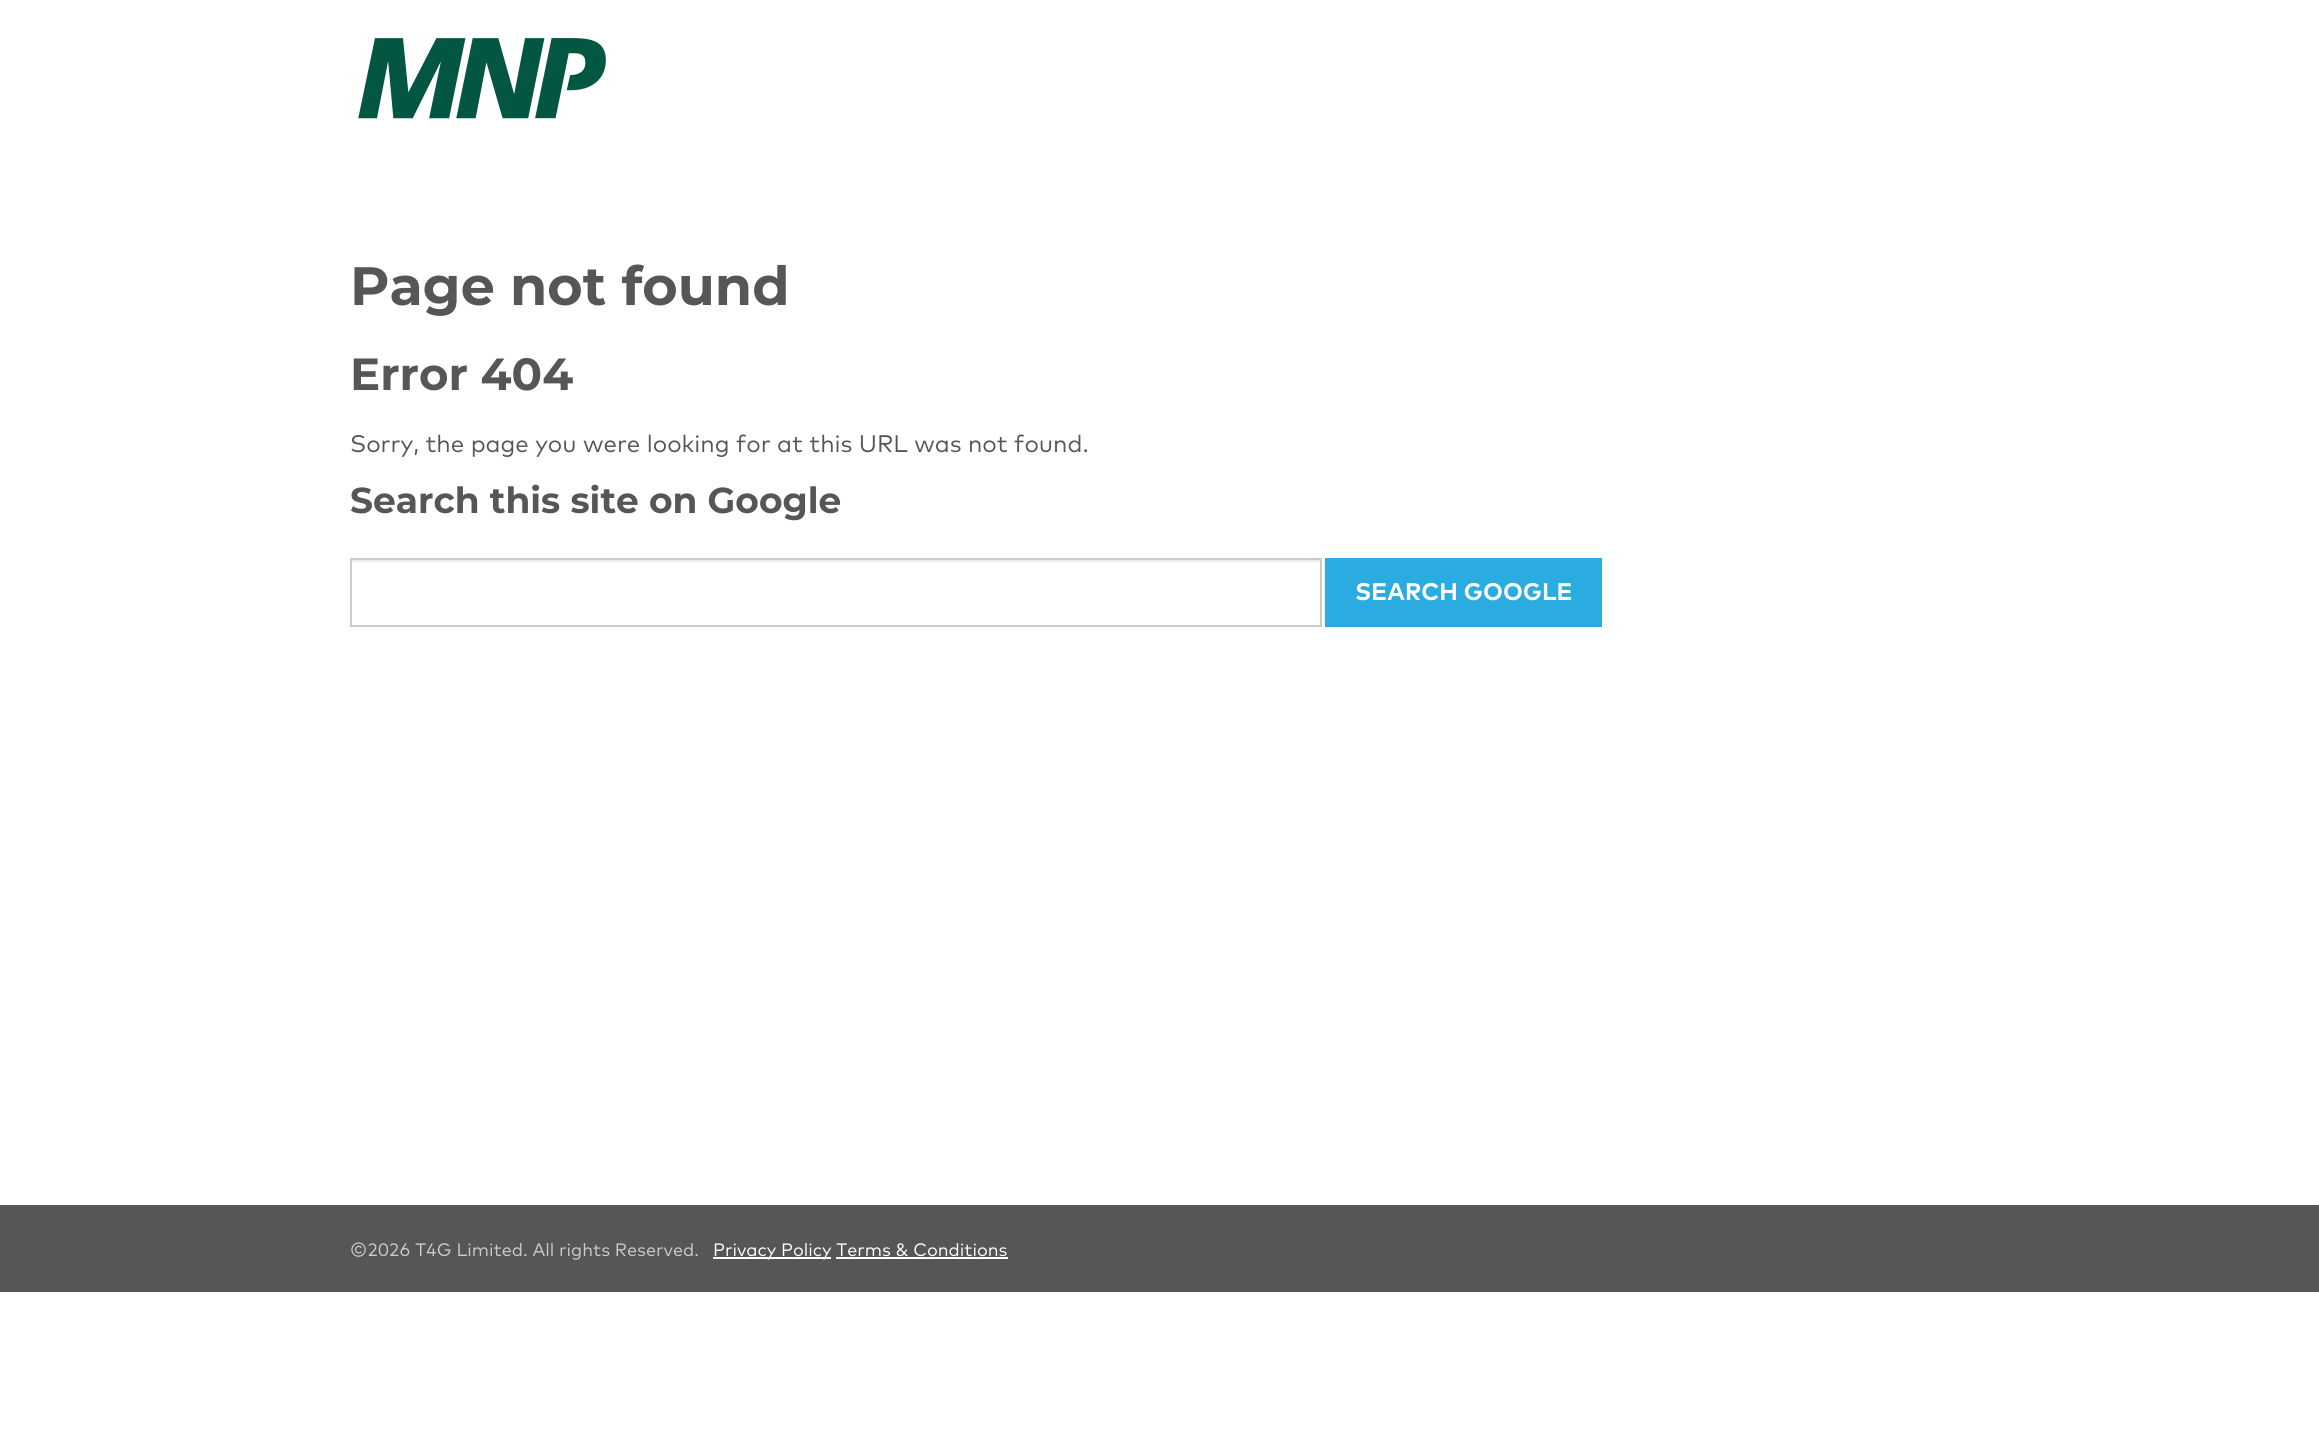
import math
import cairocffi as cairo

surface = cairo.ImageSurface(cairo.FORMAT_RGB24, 2319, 1447)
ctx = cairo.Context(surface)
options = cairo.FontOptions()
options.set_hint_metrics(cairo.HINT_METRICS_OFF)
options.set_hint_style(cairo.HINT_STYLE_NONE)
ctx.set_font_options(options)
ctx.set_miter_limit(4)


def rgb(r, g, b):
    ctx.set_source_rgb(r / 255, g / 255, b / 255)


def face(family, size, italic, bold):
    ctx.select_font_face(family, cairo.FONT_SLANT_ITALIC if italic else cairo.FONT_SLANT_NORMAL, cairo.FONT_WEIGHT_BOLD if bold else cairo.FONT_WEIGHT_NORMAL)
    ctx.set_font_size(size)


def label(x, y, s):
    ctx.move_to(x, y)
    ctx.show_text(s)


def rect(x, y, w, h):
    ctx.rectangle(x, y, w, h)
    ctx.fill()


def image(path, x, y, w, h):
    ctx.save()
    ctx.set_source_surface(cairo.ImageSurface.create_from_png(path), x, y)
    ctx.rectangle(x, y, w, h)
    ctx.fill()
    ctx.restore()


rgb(255, 255, 255)
ctx.paint()
image('image0.png', 358, 38, 248, 81)
face('Montserrat', 54, 0, 1)
rgb(86, 86, 86)
label(350, 305, 'Page not found')
face('Montserrat', 45, 0, 1)
label(350, 390, 'Error 404')
face('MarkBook', 24, 0, 0)
label(350, 452, 'Sorry, the page you were looking for at this URL was not found.')
face('Montserrat', 36, 0, 1)
label(350, 513, 'Search this site on Google')
rgb(236, 236, 236)
rect(351, 560, 969, 2)
ctx.rectangle(351, 559, 970, 67)
rgb(204, 204, 204)
ctx.stroke()
rgb(42, 172, 224)
rect(1325, 558, 277, 69)
face('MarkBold', 24, 0, 1)
rgb(255, 255, 255)
label(1355, 600, 'SEARCH GOOGLE')
rgb(86, 86, 86)
rect(0, 1205, 2319, 87)
face('MarkBook', 18, 0, 0)
rgb(204, 204, 204)
label(350, 1256, '©2026 T4G Limited. All rights Reserved.')
rgb(255, 255, 255)
rect(713, 1257, 118, 2)
label(713, 1256, 'Privacy Policy Terms & Conditions')
rect(836, 1257, 172, 2)
surface.write_to_png('render.png')
